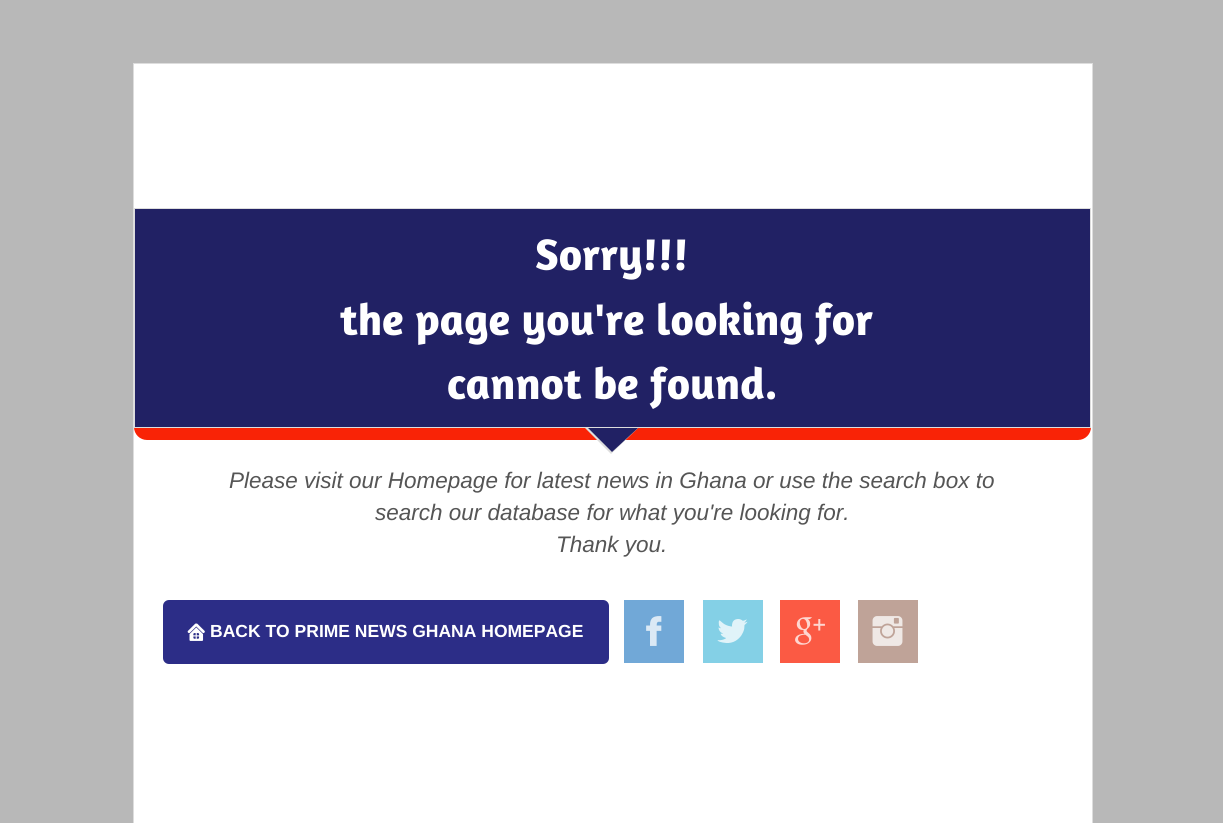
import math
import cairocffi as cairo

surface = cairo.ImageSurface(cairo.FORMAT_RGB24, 1223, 823)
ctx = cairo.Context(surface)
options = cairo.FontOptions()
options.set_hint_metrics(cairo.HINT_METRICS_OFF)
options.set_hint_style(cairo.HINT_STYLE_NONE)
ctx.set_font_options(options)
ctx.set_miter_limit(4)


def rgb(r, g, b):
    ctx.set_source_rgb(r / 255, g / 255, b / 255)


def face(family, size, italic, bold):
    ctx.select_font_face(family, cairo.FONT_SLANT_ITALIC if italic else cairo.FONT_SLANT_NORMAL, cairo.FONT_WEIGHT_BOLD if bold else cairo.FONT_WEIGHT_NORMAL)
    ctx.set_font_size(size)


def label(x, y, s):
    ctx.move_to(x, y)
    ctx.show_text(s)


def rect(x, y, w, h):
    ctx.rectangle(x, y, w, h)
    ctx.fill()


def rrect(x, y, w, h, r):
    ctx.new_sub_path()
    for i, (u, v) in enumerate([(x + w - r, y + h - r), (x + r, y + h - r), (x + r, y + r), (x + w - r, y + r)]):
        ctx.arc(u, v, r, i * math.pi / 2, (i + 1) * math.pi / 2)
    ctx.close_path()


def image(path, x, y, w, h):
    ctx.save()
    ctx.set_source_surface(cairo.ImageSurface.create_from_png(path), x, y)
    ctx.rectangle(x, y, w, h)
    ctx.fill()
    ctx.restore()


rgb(184, 184, 184)
ctx.paint()
rgb(255, 255, 255)
ctx.rectangle(133.5, 63.5, 959, 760)
ctx.fill_preserve()
rgb(221, 221, 221)
ctx.set_line_width(1)
ctx.stroke()
rgb(249, 35, 6)
rrect(134, 208, 957, 232, 13)
ctx.fill()
rgb(33, 33, 100)
ctx.rectangle(134.5, 208.5, 956, 219)
ctx.fill_preserve()
rgb(221, 221, 221)
ctx.stroke()
face('Amaranth', 45, 0, 1)
rgb(255, 255, 255)
label(535, 270, 'Sorry!!!')
label(340, 335, 'the page you\'re looking for')
label(447, 399, 'cannot be found.')
rgb(221, 221, 221)
ctx.new_path()
ctx.move_to(585, 428)
ctx.line_to(638, 428)
ctx.line_to(611, 454)
ctx.close_path()
ctx.fill()
rgb(33, 33, 100)
ctx.new_path()
ctx.move_to(588, 428)
ctx.line_to(638, 428)
ctx.line_to(612, 452)
ctx.close_path()
ctx.fill()
face('Liberation Sans', 22.5, 1, 0)
rgb(85, 85, 85)
label(229, 488, 'Please visit our Homepage for latest news in Ghana or use the search box to')
label(375, 520, 'search our database for what you\'re looking for.')
label(556, 552, 'Thank you.')
rgb(44, 45, 135)
rrect(163, 600, 446, 64, 6)
ctx.fill()
image('image0.png', 187, 623, 18, 18)
face('Liberation Sans', 17.5, 0, 1)
rgb(255, 255, 255)
label(210, 637, 'BACK TO PRIME NEWS GHANA HOMEPAGE')
rgb(113, 168, 215)
rect(624, 600, 60, 63)
image('image1.png', 646, 616, 16, 30)
rgb(132, 208, 230)
rect(703, 600, 60, 63)
image('image2.png', 717, 619, 31, 24)
rgb(251, 90, 68)
rect(780, 600, 60, 63)
image('image3.png', 795, 617, 30, 28)
rgb(191, 163, 152)
rect(858, 600, 60, 63)
image('image4.png', 872, 616, 31, 30)
surface.write_to_png('render.png')
